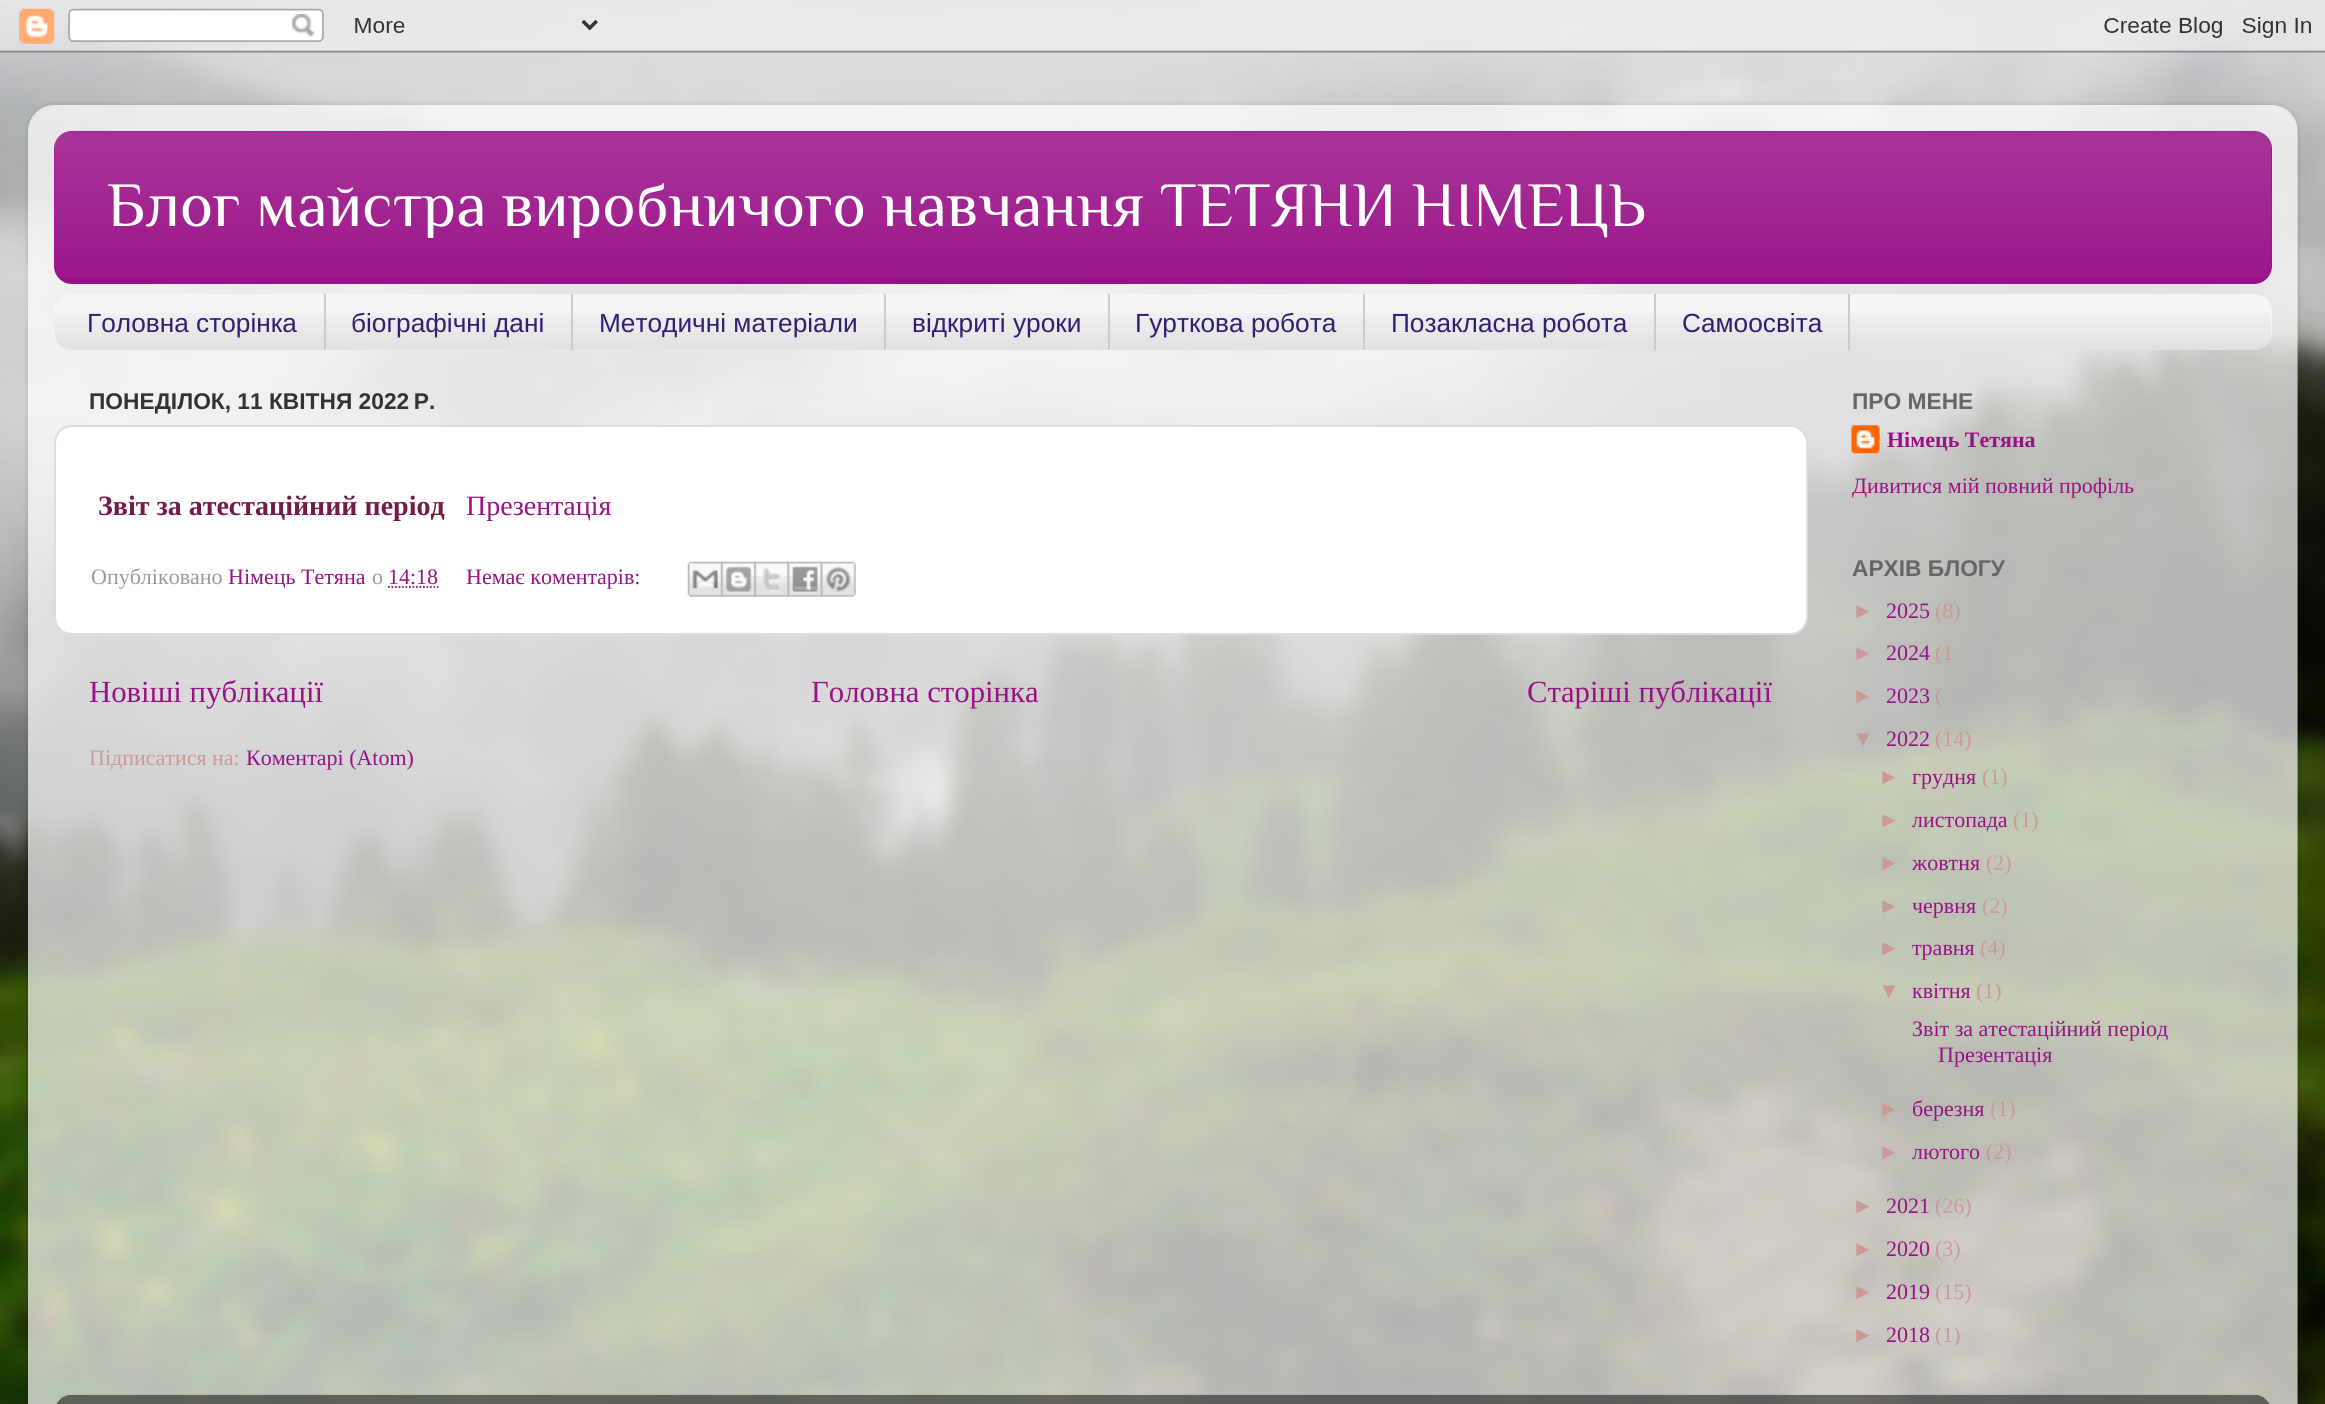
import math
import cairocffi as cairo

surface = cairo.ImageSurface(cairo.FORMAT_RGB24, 2325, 1404)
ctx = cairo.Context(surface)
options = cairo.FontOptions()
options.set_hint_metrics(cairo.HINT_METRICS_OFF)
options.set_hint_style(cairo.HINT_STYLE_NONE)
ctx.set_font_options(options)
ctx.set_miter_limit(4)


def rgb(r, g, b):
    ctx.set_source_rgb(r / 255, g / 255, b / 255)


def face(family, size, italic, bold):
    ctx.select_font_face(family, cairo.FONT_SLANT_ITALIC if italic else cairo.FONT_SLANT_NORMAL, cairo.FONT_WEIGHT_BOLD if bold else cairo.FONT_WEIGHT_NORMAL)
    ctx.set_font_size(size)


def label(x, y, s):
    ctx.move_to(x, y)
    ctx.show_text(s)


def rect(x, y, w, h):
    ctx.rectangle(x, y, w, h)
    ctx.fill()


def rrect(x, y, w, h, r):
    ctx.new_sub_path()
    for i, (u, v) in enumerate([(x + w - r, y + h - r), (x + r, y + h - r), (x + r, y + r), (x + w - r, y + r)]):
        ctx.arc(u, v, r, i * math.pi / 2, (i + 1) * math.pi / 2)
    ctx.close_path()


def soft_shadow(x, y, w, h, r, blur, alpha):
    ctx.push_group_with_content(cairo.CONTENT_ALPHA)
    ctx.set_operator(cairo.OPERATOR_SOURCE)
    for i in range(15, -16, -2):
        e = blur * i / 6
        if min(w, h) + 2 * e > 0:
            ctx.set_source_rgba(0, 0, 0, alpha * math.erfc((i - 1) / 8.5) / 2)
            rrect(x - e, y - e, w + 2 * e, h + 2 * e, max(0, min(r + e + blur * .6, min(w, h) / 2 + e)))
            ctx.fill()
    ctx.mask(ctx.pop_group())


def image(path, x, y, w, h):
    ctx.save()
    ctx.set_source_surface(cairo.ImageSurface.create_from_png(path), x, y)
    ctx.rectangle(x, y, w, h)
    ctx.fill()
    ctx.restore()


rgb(255, 255, 255)
ctx.paint()
image('image0.png', 0, 0, 2325, 1404)
image('image1.png', 0, 0, 2325, 53)
ctx.save()
ctx.set_fill_rule(cairo.FILL_RULE_EVEN_ODD)
ctx.new_path()
ctx.move_to(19, 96)
ctx.line_to(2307, 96)
ctx.line_to(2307, 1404)
ctx.line_to(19, 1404)
ctx.close_path()
ctx.move_to(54, 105)
ctx.line_to(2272, 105)
ctx.curve_to(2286.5, 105, 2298, 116.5, 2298, 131)
ctx.line_to(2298, 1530)
ctx.curve_to(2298, 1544.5, 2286.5, 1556, 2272, 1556)
ctx.line_to(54, 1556)
ctx.curve_to(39.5, 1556, 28, 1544.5, 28, 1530)
ctx.line_to(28, 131)
ctx.curve_to(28, 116.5, 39.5, 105, 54, 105)
ctx.close_path()
ctx.clip()
rgb(0, 0, 0)
soft_shadow(28, 105, 2270, 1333, 26, 2.5, 0.15)
ctx.restore()
image('image2.png', 28, 105, 2270, 1299)
rgb(153, 17, 135)
rrect(54, 131, 2218, 153, 18)
ctx.fill()
image('image3.png', 54, 131, 2218, 147)
face('Philosopher', 63, 0, 0)
rgb(255, 255, 255)
label(107, 226, 'Блог майстра виробничого навчання ТЕТЯНИ НІМЕЦЬ')
rgb(245, 245, 245)
rrect(54, 294, 2218, 56, 18)
ctx.fill()
image('image4.png', 54, 313, 2217, 37)
rgb(204, 204, 204)
rect(324, 294, 2, 56)
face('Liberation Sans', 26.25, 0, 0)
rgb(53, 28, 117)
label(87, 332, 'Головна сторінка')
rgb(204, 204, 204)
rect(571, 294, 2, 56)
rgb(53, 28, 117)
label(351, 332, 'біографічні дані')
rgb(204, 204, 204)
rect(884, 294, 2, 56)
rgb(53, 28, 117)
label(599, 332, 'Методичні матеріали')
rgb(204, 204, 204)
rect(1108, 294, 2, 56)
rgb(53, 28, 117)
label(912, 332, 'відкриті уроки')
rgb(204, 204, 204)
rect(1363, 294, 2, 56)
rgb(53, 28, 117)
label(1135, 332, 'Гурткова робота')
rgb(204, 204, 204)
rect(1654, 294, 2, 56)
rgb(53, 28, 117)
label(1391, 332, 'Позакласна робота')
rgb(204, 204, 204)
rect(1848, 294, 2, 56)
rgb(53, 28, 117)
label(1682, 332, 'Самоосвіта')
face('Liberation Sans', 22.75, 0, 1)
rgb(51, 51, 51)
label(89, 409, 'ПОНЕДІЛОК, 11 КВІТНЯ 2022 Р.')
rgb(255, 255, 255)
rrect(55, 426, 1752, 208, 17)
ctx.fill_preserve()
rgb(221, 221, 221)
ctx.stroke()
face('Liberation Serif', 28, 0, 1)
rgb(116, 27, 71)
label(98, 515, 'Звіт за атестаційний період')
face('Liberation Serif', 28, 0, 0)
rgb(153, 17, 135)
label(466, 515, 'Презентація')
face('Liberation Serif', 22, 0, 0)
rgb(153, 153, 153)
label(91, 584, 'Опубліковано')
rgb(153, 17, 135)
label(228, 584, 'Німець Тетяна')
rgb(153, 153, 153)
label(372, 584, 'о')
rgb(153, 17, 135)
label(388, 584, '14:18')
ctx.new_path()
ctx.move_to(388, 587)
ctx.line_to(438.5, 587)
ctx.set_line_width(1.8)
ctx.set_dash([1.75, 1.75])
ctx.stroke()
label(466, 584, 'Немає коментарів:')
image('image5.png', 687, 561, 36, 36)
image('image6.png', 721, 561, 35, 36)
image('image7.png', 754, 561, 36, 36)
image('image8.png', 787, 561, 36, 36)
image('image9.png', 820, 561, 36, 36)
face('Liberation Serif', 30.75, 0, 0)
label(89, 702, 'Новіші публікації')
label(811, 702, 'Головна сторінка')
label(1527, 702, 'Старіші публікації')
face('Liberation Serif', 22, 0, 0)
rgb(204, 153, 153)
label(89, 765, 'Підписатися на:')
rgb(153, 17, 135)
label(246, 765, 'Коментарі (Atom)')
face('Liberation Sans', 22.75, 0, 1)
rgb(102, 102, 102)
label(1852, 409, 'ПРО МЕНЕ')
image('image10.png', 1851, 425, 29, 29)
face('Liberation Serif', 22, 0, 1)
rgb(153, 17, 135)
label(1887, 447, 'Німець Тетяна')
face('Liberation Serif', 22, 0, 0)
label(1852, 493, 'Дивитися мій повний профіль')
face('Liberation Sans', 22.75, 0, 1)
rgb(102, 102, 102)
label(1852, 576, 'АРХІВ БЛОГУ')
face('Liberation Sans', 22, 0, 0)
rgb(204, 153, 153)
label(1852, 618, '►')
face('Liberation Serif', 22, 0, 0)
rgb(153, 17, 135)
label(1886, 618, '2025')
rgb(204, 153, 153)
label(1935, 618, '(8)')
face('Liberation Sans', 22, 0, 0)
label(1852, 660, '►')
face('Liberation Serif', 22, 0, 0)
rgb(153, 17, 135)
label(1886, 660, '2024')
rgb(204, 153, 153)
label(1935, 660, '(1')
face('Liberation Sans', 22, 0, 0)
label(1852, 703, '►')
face('Liberation Serif', 22, 0, 0)
rgb(153, 17, 135)
label(1886, 703, '2023')
rgb(204, 153, 153)
label(1935, 703, '(')
face('Liberation Sans', 22, 0, 0)
label(1852, 746, '▼')
face('Liberation Serif', 22, 0, 0)
rgb(153, 17, 135)
label(1886, 746, '2022')
rgb(204, 153, 153)
label(1935, 746, '(14)')
face('Liberation Sans', 22, 0, 0)
label(1878, 784, '►')
face('Liberation Serif', 22, 0, 0)
rgb(153, 17, 135)
label(1912, 784, 'грудня')
rgb(204, 153, 153)
label(1982, 784, '(1)')
face('Liberation Sans', 22, 0, 0)
label(1878, 827, '►')
face('Liberation Serif', 22, 0, 0)
rgb(153, 17, 135)
label(1912, 827, 'листопада')
rgb(204, 153, 153)
label(2013, 827, '(1)')
face('Liberation Sans', 22, 0, 0)
label(1878, 870, '►')
face('Liberation Serif', 22, 0, 0)
rgb(153, 17, 135)
label(1912, 870, 'жовтня')
rgb(204, 153, 153)
label(1986, 870, '(2)')
face('Liberation Sans', 22, 0, 0)
label(1878, 913, '►')
face('Liberation Serif', 22, 0, 0)
rgb(153, 17, 135)
label(1912, 913, 'червня')
rgb(204, 153, 153)
label(1982, 913, '(2)')
face('Liberation Sans', 22, 0, 0)
label(1878, 955, '►')
face('Liberation Serif', 22, 0, 0)
rgb(153, 17, 135)
label(1912, 955, 'травня')
rgb(204, 153, 153)
label(1980, 955, '(4)')
face('Liberation Sans', 22, 0, 0)
label(1878, 998, '▼')
face('Liberation Serif', 22, 0, 0)
rgb(153, 17, 135)
label(1912, 998, 'квітня')
rgb(204, 153, 153)
label(1976, 998, '(1)')
rgb(153, 17, 135)
label(1912, 1036, 'Звіт за атестаційний період')
label(1938, 1062, 'Презентація')
face('Liberation Sans', 22, 0, 0)
rgb(204, 153, 153)
label(1878, 1116, '►')
face('Liberation Serif', 22, 0, 0)
rgb(153, 17, 135)
label(1912, 1116, 'березня')
rgb(204, 153, 153)
label(1990, 1116, '(1)')
face('Liberation Sans', 22, 0, 0)
label(1878, 1159, '►')
face('Liberation Serif', 22, 0, 0)
rgb(153, 17, 135)
label(1912, 1159, 'лютого')
rgb(204, 153, 153)
label(1986, 1159, '(2)')
face('Liberation Sans', 22, 0, 0)
label(1852, 1213, '►')
face('Liberation Serif', 22, 0, 0)
rgb(153, 17, 135)
label(1886, 1213, '2021')
rgb(204, 153, 153)
label(1935, 1213, '(26)')
face('Liberation Sans', 22, 0, 0)
label(1852, 1256, '►')
face('Liberation Serif', 22, 0, 0)
rgb(153, 17, 135)
label(1886, 1256, '2020')
rgb(204, 153, 153)
label(1935, 1256, '(3)')
face('Liberation Sans', 22, 0, 0)
label(1852, 1299, '►')
face('Liberation Serif', 22, 0, 0)
rgb(153, 17, 135)
label(1886, 1299, '2019')
rgb(204, 153, 153)
label(1935, 1299, '(15)')
face('Liberation Sans', 22, 0, 0)
label(1852, 1342, '►')
face('Liberation Serif', 22, 0, 0)
rgb(153, 17, 135)
label(1886, 1342, '2018')
rgb(204, 153, 153)
label(1935, 1342, '(1)')
image('image11.png', 56, 1394, 2214, 10)
surface.write_to_png('render.png')
